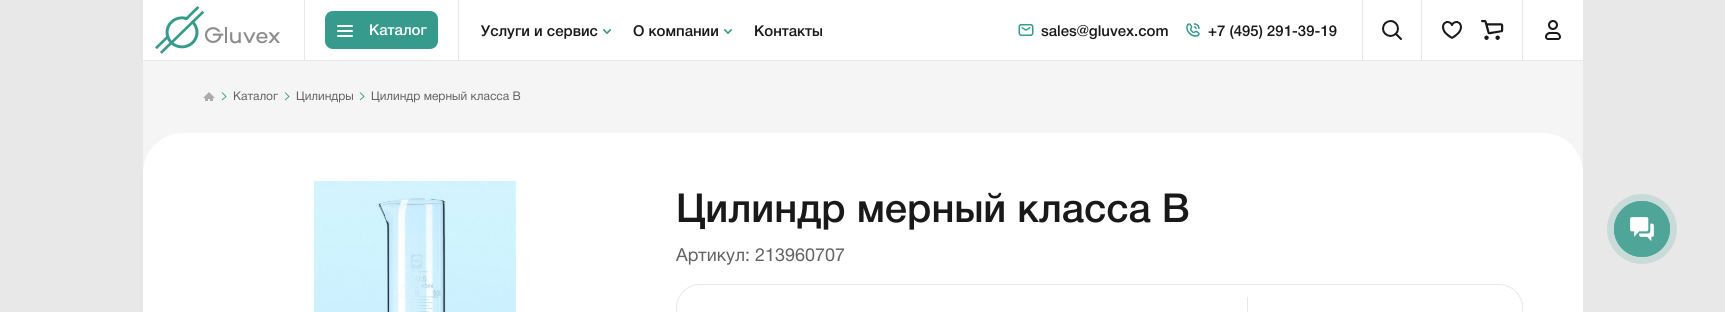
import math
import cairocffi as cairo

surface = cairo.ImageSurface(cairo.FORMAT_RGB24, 1725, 312)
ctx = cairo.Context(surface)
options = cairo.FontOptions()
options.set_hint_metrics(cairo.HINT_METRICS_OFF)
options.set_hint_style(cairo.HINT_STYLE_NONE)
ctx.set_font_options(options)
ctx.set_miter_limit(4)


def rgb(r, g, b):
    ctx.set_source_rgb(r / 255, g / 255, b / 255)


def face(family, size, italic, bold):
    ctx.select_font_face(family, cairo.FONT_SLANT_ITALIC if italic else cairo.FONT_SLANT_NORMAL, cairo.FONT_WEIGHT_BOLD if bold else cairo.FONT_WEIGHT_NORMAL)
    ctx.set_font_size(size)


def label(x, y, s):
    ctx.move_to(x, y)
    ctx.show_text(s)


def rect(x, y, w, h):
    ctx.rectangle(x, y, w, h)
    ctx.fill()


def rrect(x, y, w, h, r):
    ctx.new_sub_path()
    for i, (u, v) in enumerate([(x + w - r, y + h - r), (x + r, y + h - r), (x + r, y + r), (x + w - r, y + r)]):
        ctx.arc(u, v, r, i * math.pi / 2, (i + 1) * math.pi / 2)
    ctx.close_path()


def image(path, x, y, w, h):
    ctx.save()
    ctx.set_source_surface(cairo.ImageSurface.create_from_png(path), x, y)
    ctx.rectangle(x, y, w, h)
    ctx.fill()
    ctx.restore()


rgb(232, 232, 232)
ctx.paint()
rgb(255, 255, 255)
rect(143, 0, 1440, 60)
image('image0.png', 155, 6, 125, 48)
rgb(232, 232, 232)
rect(458, 0, 1, 60)
rect(304, 0, 1, 60)
rgb(54, 155, 141)
rrect(325, 11, 113, 38, 8)
ctx.fill()
rgb(255, 255, 255)
rrect(337, 30, 16, 2, 1)
ctx.fill()
rrect(337, 25, 16, 2, 1)
ctx.fill()
rrect(337, 35, 16, 2, 1)
ctx.fill()
face('Helvetica Neue Medium', 15, 0, 0)
label(369, 35, 'Каталог')
rgb(25, 25, 25)
label(481, 36, 'Услуги и сервис')
image('image1.png', 603, 29, 8, 5)
label(633, 36, 'О компании')
image('image1.png', 724, 29, 8, 5)
label(754, 36, 'Контакты')
image('image2.png', 1018, 24, 16, 12)
label(1041, 36, 'sales@gluvex.com')
image('image3.png', 1186, 23, 14, 14)
label(1208, 36, '+7 (495) 291-39-19')
rgb(232, 232, 232)
rect(1421, 0, 1, 60)
rect(1362, 0, 1, 60)
image('image4.png', 1382, 20, 20, 20)
image('image5.png', 1442, 21, 20, 18)
image('image6.png', 1481, 20, 23, 20)
rect(1522, 0, 1, 60)
image('image7.png', 1545, 20, 16, 20)
rgb(245, 245, 245)
rect(143, 61, 1440, 112)
image('image8.png', 203, 92, 12, 9)
ctx.new_path()
ctx.move_to(222, 92.5)
ctx.line_to(226, 96.5)
ctx.line_to(222, 100)
rgb(54, 155, 141)
ctx.set_line_width(0.9)
ctx.stroke()
face('Helvetica Neue', 12, 0, 0)
rgb(98, 98, 98)
label(233, 100, 'Каталог')
ctx.new_path()
ctx.move_to(285, 92.5)
ctx.line_to(289, 96.5)
ctx.line_to(285, 100)
rgb(54, 155, 141)
ctx.stroke()
rgb(98, 98, 98)
label(296, 100, 'Цилиндры')
ctx.new_path()
ctx.move_to(360, 92.5)
ctx.line_to(364, 96.5)
ctx.line_to(360, 100)
rgb(54, 155, 141)
ctx.stroke()
rgb(98, 98, 98)
label(371, 100, 'Цилиндр мерный класса B')
rgb(255, 255, 255)
ctx.new_path()
ctx.move_to(183, 133)
ctx.line_to(1543, 133)
ctx.curve_to(1565, 133, 1583, 151, 1583, 173)
ctx.line_to(1583, 312)
ctx.line_to(143, 312)
ctx.line_to(143, 173)
ctx.curve_to(143, 151, 161, 133, 183, 133)
ctx.close_path()
ctx.fill()
image('image9.png', 314, 181, 202, 131)
face('Helvetica Neue Medium', 40, 0, 0)
rgb(25, 25, 25)
label(676, 222, 'Цилиндр мерный класса B')
face('Helvetica Neue', 18, 0, 0)
rgb(98, 98, 98)
label(676, 261, 'Артикул: 213960707')
rrect(676.5, 284.5, 846, 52, 23.5)
rgb(232, 232, 232)
ctx.set_line_width(1)
ctx.stroke()
rect(1247, 297, 1, 15)
rgb(201, 219, 216)
ctx.arc(1642, 229, 35, 0, 2 * math.pi)
ctx.fill()
ctx.arc(1642, 229, 27.6, 0, 2 * math.pi)
rgb(79, 165, 152)
ctx.set_line_width(0.8)
ctx.stroke()
ctx.arc(1642, 229, 28, 0, 2 * math.pi)
ctx.fill()
image('image10.png', 1630, 217, 24, 24)
surface.write_to_png('render.png')
